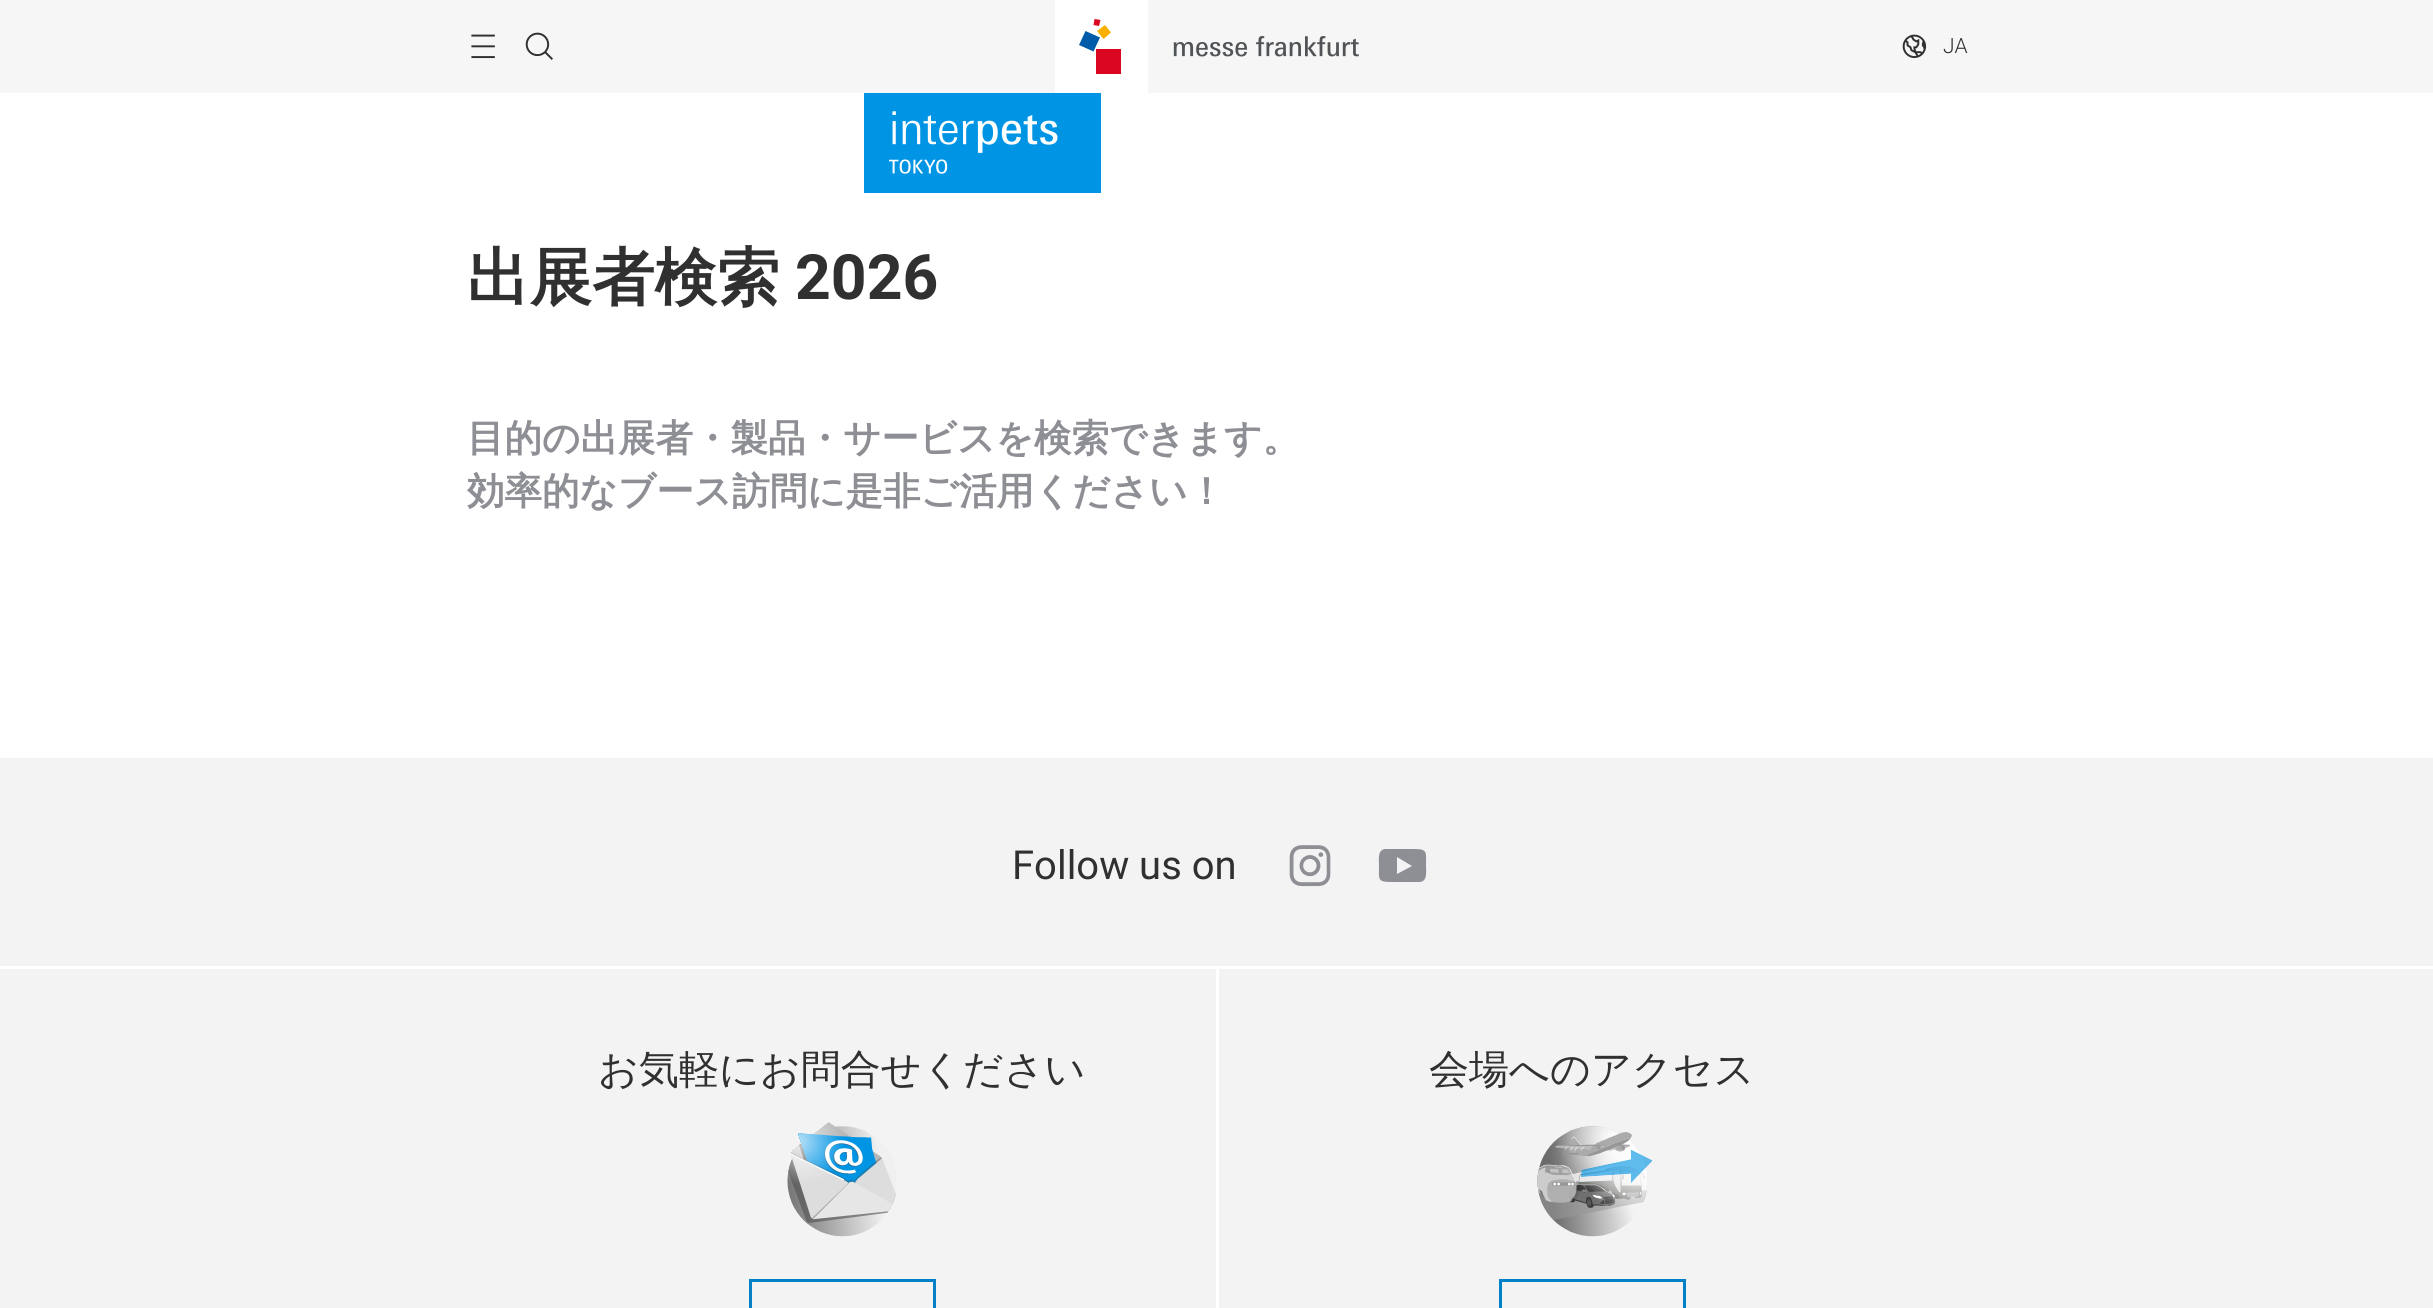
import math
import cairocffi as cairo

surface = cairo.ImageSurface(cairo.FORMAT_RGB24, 2433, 1308)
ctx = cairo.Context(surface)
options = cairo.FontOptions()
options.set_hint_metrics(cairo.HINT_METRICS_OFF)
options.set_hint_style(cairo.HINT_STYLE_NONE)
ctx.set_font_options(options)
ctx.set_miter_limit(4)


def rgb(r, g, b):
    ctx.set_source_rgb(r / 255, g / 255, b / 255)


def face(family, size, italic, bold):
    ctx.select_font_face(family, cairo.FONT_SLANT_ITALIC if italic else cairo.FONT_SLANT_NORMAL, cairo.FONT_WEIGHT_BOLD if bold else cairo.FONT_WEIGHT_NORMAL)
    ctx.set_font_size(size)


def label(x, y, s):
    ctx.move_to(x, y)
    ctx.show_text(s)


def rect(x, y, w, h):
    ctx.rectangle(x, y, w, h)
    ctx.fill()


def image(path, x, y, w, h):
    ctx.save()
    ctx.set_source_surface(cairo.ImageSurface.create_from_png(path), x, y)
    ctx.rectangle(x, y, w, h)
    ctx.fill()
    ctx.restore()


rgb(255, 255, 255)
ctx.paint()
rgb(246, 246, 246)
rect(0, 0, 2433, 93)
image('image0.png', 471, 34, 24, 25)
image('image1.png', 525, 32, 28, 28)
rgb(255, 255, 255)
rect(1055, 0, 93, 93)
rgb(219, 7, 32)
rect(1096, 49, 25, 25)
rgb(0, 92, 169)
ctx.new_path()
ctx.move_to(1093.5, 51.5)
ctx.line_to(1079, 45)
ctx.line_to(1085.5, 31)
ctx.line_to(1100, 37.5)
ctx.close_path()
ctx.fill()
rgb(249, 176, 0)
ctx.new_path()
ctx.move_to(1103.5, 39)
ctx.line_to(1097, 31)
ctx.line_to(1105, 25)
ctx.line_to(1111, 32.5)
ctx.close_path()
ctx.fill()
rgb(219, 7, 32)
ctx.new_path()
ctx.move_to(1099, 26)
ctx.line_to(1093.5, 25)
ctx.line_to(1094.5, 19)
ctx.line_to(1100.5, 20)
ctx.close_path()
ctx.fill()
image('image2.png', 1173, 36, 186, 21)
image('image3.png', 1902, 34, 25, 24)
face('Roboto Light', 21, 0, 0)
rgb(48, 48, 48)
label(1943, 53, 'JA')
rgb(0, 148, 228)
rect(864, 93, 237, 100)
image('image4.png', 889, 111, 169, 63)
face('WenQuanYi Zen Hei', 62.5, 0, 1)
rgb(48, 48, 48)
label(467, 299, '出展者検索')
face('Roboto', 62.5, 0, 1)
label(795, 299, '2026')
face('WenQuanYi Zen Hei', 37.5, 0, 1)
rgb(141, 143, 149)
label(467, 451, '目的の出展者・製品・サービスを検索できます。')
label(467, 504, '効率的なブース訪問に是非ご活用ください！')
rgb(243, 243, 243)
rect(0, 758, 2433, 208)
face('Roboto', 40, 0, 0)
rgb(48, 48, 48)
label(1012, 879, 'Follow us on')
image('image5.png', 1289, 845, 42, 42)
rgb(141, 143, 149)
ctx.new_path()
ctx.move_to(1386, 849)
ctx.line_to(1414, 849)
ctx.curve_to(1428, 849, 1426, 852, 1426, 866)
ctx.curve_to(1426, 871, 1428, 882, 1419, 882)
ctx.line_to(1391, 882)
ctx.curve_to(1377, 882, 1379, 879, 1379, 866)
ctx.curve_to(1379, 860, 1377, 849, 1386, 849)
ctx.close_path()
ctx.move_to(1397, 857)
ctx.line_to(1397, 874)
ctx.line_to(1412, 866)
ctx.close_path()
ctx.fill()
rgb(243, 243, 243)
rect(0, 969, 1216, 339)
face('WenQuanYi Zen Hei Medium', 40, 0, 0)
rgb(48, 48, 48)
label(598, 1083, 'お気軽にお問合せください')
image('image6.png', 787, 1122, 109, 115)
ctx.rectangle(750.5, 1280.5, 184, 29)
rgb(0, 129, 198)
ctx.set_line_width(3)
ctx.stroke()
rgb(243, 243, 243)
rect(1219, 969, 1214, 339)
rgb(48, 48, 48)
label(1429, 1083, '会場へのアクセス')
image('image7.png', 1537, 1126, 116, 111)
ctx.rectangle(1500.5, 1280.5, 184, 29)
rgb(0, 129, 198)
ctx.stroke()
surface.write_to_png('render.png')
